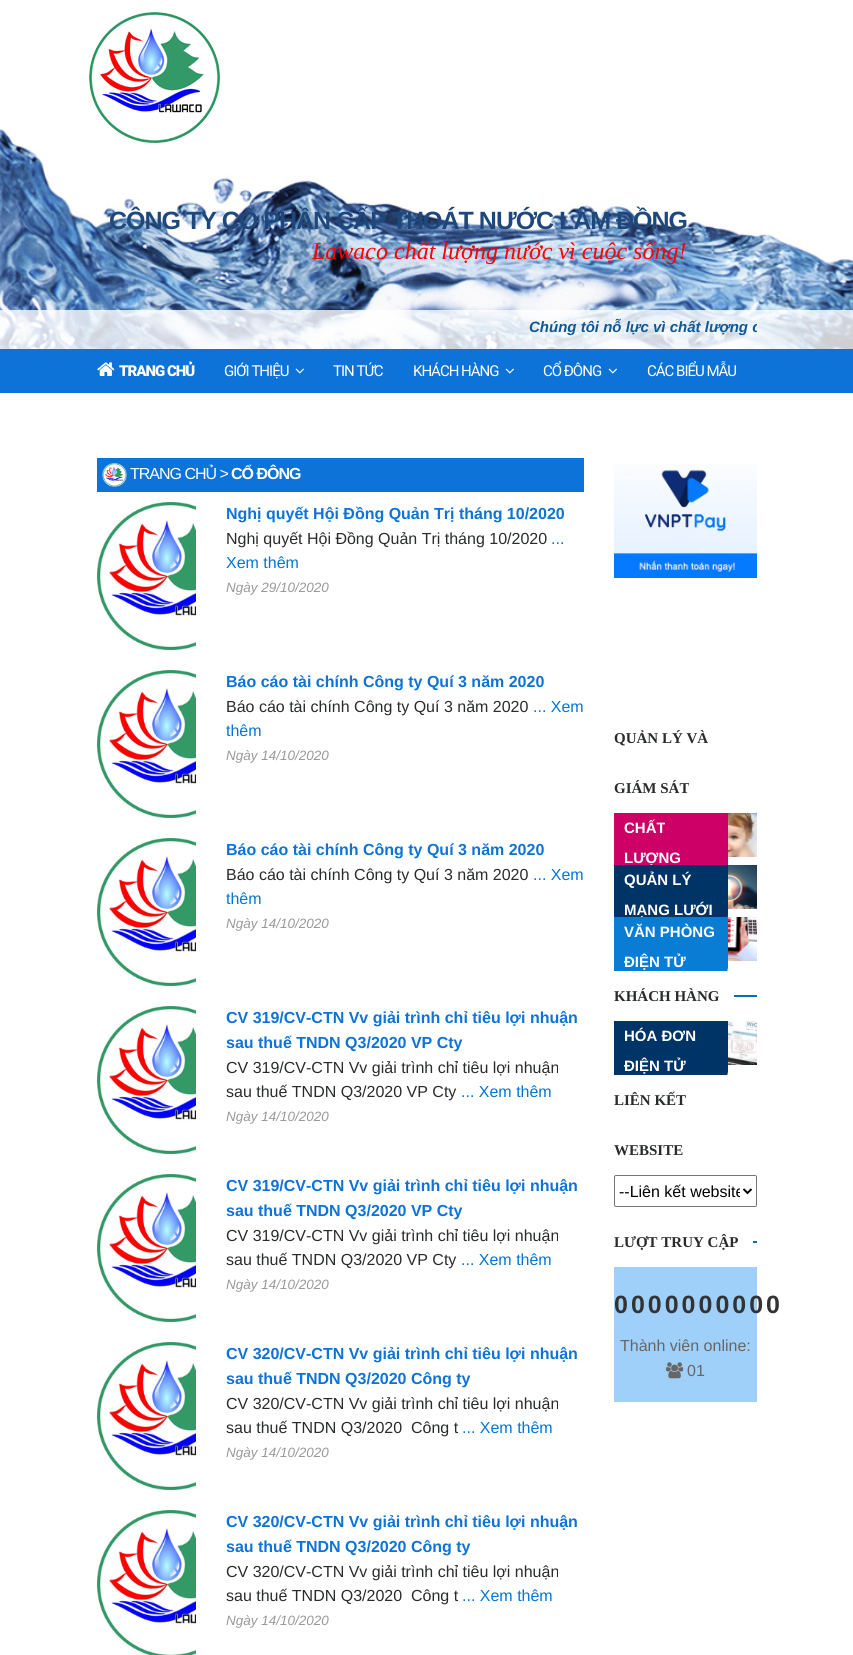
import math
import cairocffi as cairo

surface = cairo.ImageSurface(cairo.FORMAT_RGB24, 853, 1655)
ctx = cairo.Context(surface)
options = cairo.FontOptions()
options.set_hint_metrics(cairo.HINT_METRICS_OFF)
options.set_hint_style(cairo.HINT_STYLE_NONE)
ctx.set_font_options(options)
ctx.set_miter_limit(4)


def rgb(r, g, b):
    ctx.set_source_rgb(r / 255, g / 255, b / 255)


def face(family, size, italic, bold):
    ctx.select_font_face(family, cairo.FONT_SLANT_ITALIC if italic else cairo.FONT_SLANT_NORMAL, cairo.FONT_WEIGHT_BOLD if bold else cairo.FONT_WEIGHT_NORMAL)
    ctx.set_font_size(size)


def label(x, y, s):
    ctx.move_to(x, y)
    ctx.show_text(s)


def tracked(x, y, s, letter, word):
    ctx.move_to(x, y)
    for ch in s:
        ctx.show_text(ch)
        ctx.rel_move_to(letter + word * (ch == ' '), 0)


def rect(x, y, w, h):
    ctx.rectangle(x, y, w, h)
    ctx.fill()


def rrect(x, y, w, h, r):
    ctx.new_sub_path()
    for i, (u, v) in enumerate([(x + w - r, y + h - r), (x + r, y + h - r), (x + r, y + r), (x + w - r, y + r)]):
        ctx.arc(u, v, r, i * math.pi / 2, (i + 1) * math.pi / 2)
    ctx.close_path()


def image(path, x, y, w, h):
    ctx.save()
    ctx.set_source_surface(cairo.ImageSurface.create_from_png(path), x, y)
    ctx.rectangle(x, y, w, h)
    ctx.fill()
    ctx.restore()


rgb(255, 255, 255)
ctx.paint()
image('image0.png', 0, 129, 853, 220)
image('image1.png', 89, 12, 131, 131)
face('Liberation Sans', 25, 0, 1)
rgb(30, 72, 124)
tracked(109, 229, 'CÔNG TY CỔ PHẦN CẤP THOÁT NƯỚC LÂM ĐỒNG', -1, 0)
face('Liberation Serif', 24, 1, 0)
rgb(255, 0, 0)
label(312, 259, 'Lawaco chất lượng nước vì cuộc sống!')
ctx.set_source_rgba(1, 1, 1, 0.8)
rect(0, 310, 853, 39)
ctx.save()
ctx.rectangle(97, 310, 660, 33)
ctx.clip()
face('Liberation Sans', 15, 1, 1)
rgb(16, 88, 148)
label(529, 332, 'Chúng tôi nỗ lực vì chất lượng c')
ctx.restore()
rgb(14, 115, 216)
rect(0, 349, 853, 44)
image('image2.png', 97, 362, 18, 14)
face('Roboto Black', 15, 0, 0)
rgb(255, 255, 255)
tracked(119, 376, 'TRANG CHỦ', -1, 0)
face('Roboto', 15, 0, 0)
tracked(224, 376, 'GIỚI THIỆU', -1, 0)
image('image3.png', 295, 368, 9, 6)
tracked(333, 376, 'TIN TỨC', -1, 0)
tracked(413, 376, 'KHÁCH HÀNG', -1, 0)
image('image3.png', 505, 368, 9, 6)
tracked(543, 376, 'CỔ ĐÔNG', -1, 0)
image('image3.png', 608, 368, 9, 6)
tracked(647, 376, 'CÁC BIỂU MẪU', -1, 0)
rgb(14, 115, 216)
rect(97, 458, 487, 34)
image('image4.png', 102, 463, 25, 24)
face('Liberation Sans', 16, 0, 0)
rgb(255, 255, 255)
tracked(130, 479, 'TRANG CHỦ >', -1, 0)
face('Liberation Sans', 16, 0, 1)
tracked(231, 479, 'CỔ ĐÔNG', -1, 0)
image('image5.png', 97, 502, 99, 148)
rgb(14, 115, 216)
label(226, 519, 'Nghị quyết Hội Đồng Quản Trị tháng 10/2020')
face('Liberation Sans', 16, 0, 0)
rgb(41, 43, 44)
label(226, 544, 'Nghị quyết Hội Đồng Quản Trị tháng 10/2020')
rgb(2, 117, 216)
label(551, 544, '...')
label(226, 568, 'Xem thêm')
face('Liberation Sans', 13.5, 1, 0)
rgb(153, 153, 153)
label(226, 592, 'Ngày 29/10/2020')
image('image6.png', 97, 670, 99, 148)
face('Liberation Sans', 16, 0, 1)
rgb(14, 115, 216)
label(226, 687, 'Báo cáo tài chính Công ty Quí 3 năm 2020')
face('Liberation Sans', 16, 0, 0)
rgb(41, 43, 44)
label(226, 712, 'Báo cáo tài chính Công ty Quí 3 năm 2020')
rgb(2, 117, 216)
label(533, 712, '... Xem')
label(226, 736, 'thêm')
face('Liberation Sans', 13.5, 1, 0)
rgb(153, 153, 153)
label(226, 760, 'Ngày 14/10/2020')
image('image5.png', 97, 838, 99, 148)
face('Liberation Sans', 16, 0, 1)
rgb(14, 115, 216)
label(226, 855, 'Báo cáo tài chính Công ty Quí 3 năm 2020')
face('Liberation Sans', 16, 0, 0)
rgb(41, 43, 44)
label(226, 880, 'Báo cáo tài chính Công ty Quí 3 năm 2020')
rgb(2, 117, 216)
label(533, 880, '... Xem')
label(226, 904, 'thêm')
face('Liberation Sans', 13.5, 1, 0)
rgb(153, 153, 153)
label(226, 928, 'Ngày 14/10/2020')
image('image5.png', 97, 1006, 99, 148)
face('Liberation Sans', 16, 0, 1)
rgb(14, 115, 216)
label(226, 1023, 'CV 319/CV-CTN Vv giải trình chỉ tiêu lợi nhuận')
label(226, 1048, 'sau thuế TNDN Q3/2020 VP Cty')
face('Liberation Sans', 16, 0, 0)
rgb(41, 43, 44)
label(226, 1073, 'CV 319/CV-CTN Vv giải trình chỉ tiêu lợi nhuận')
label(226, 1097, 'sau thuế TNDN Q3/2020 VP Cty')
rgb(2, 117, 216)
label(461, 1097, '... Xem thêm')
face('Liberation Sans', 13.5, 1, 0)
rgb(153, 153, 153)
label(226, 1121, 'Ngày 14/10/2020')
image('image5.png', 97, 1174, 99, 148)
face('Liberation Sans', 16, 0, 1)
rgb(14, 115, 216)
label(226, 1191, 'CV 319/CV-CTN Vv giải trình chỉ tiêu lợi nhuận')
label(226, 1216, 'sau thuế TNDN Q3/2020 VP Cty')
face('Liberation Sans', 16, 0, 0)
rgb(41, 43, 44)
label(226, 1241, 'CV 319/CV-CTN Vv giải trình chỉ tiêu lợi nhuận')
label(226, 1265, 'sau thuế TNDN Q3/2020 VP Cty')
rgb(2, 117, 216)
label(461, 1265, '... Xem thêm')
face('Liberation Sans', 13.5, 1, 0)
rgb(153, 153, 153)
label(226, 1289, 'Ngày 14/10/2020')
image('image5.png', 97, 1342, 99, 148)
face('Liberation Sans', 16, 0, 1)
rgb(14, 115, 216)
label(226, 1359, 'CV 320/CV-CTN Vv giải trình chỉ tiêu lợi nhuận')
label(226, 1384, 'sau thuế TNDN Q3/2020 Công ty')
face('Liberation Sans', 16, 0, 0)
rgb(41, 43, 44)
label(226, 1409, 'CV 320/CV-CTN Vv giải trình chỉ tiêu lợi nhuận')
label(226, 1433, 'sau thuế TNDN Q3/2020  Công t')
rgb(2, 117, 216)
label(462, 1433, '... Xem thêm')
face('Liberation Sans', 13.5, 1, 0)
rgb(153, 153, 153)
label(226, 1457, 'Ngày 14/10/2020')
image('image7.png', 97, 1510, 99, 145)
face('Liberation Sans', 16, 0, 1)
rgb(14, 115, 216)
label(226, 1527, 'CV 320/CV-CTN Vv giải trình chỉ tiêu lợi nhuận')
label(226, 1552, 'sau thuế TNDN Q3/2020 Công ty')
face('Liberation Sans', 16, 0, 0)
rgb(41, 43, 44)
label(226, 1577, 'CV 320/CV-CTN Vv giải trình chỉ tiêu lợi nhuận')
label(226, 1601, 'sau thuế TNDN Q3/2020  Công t')
rgb(2, 117, 216)
label(462, 1601, '... Xem thêm')
face('Liberation Sans', 13.5, 1, 0)
rgb(153, 153, 153)
label(226, 1625, 'Ngày 14/10/2020')
image('image8.png', 614, 464, 143, 114)
face('Liberation Serif', 15, 0, 1)
rgb(41, 43, 44)
label(614, 743, 'QUẢN LÝ VÀ')
label(614, 793, 'GIÁM SÁT')
rgb(204, 0, 102)
rect(614, 813, 114, 52)
face('Liberation Sans', 15, 0, 1)
rgb(255, 255, 255)
label(624, 833, 'CHẤT')
label(624, 863, 'LƯỢNG')
image('image9.png', 728, 813, 29, 44)
rgb(0, 51, 102)
ctx.new_path()
ctx.move_to(614, 865)
ctx.line_to(728, 865)
ctx.line_to(728, 915)
ctx.curve_to(728, 920.5, 723.5, 925, 718, 925)
ctx.line_to(614, 925)
ctx.close_path()
ctx.fill()
rgb(255, 255, 255)
label(624, 885, 'QUẢN LÝ')
label(624, 915, 'MẠNG LƯỚI')
image('image10.png', 728, 865, 29, 44)
rgb(9, 124, 212)
ctx.new_path()
ctx.move_to(614, 917)
ctx.line_to(728, 917)
ctx.line_to(728, 967)
ctx.curve_to(728, 972.5, 723.5, 977, 718, 977)
ctx.line_to(614, 977)
ctx.close_path()
ctx.fill()
rgb(255, 255, 255)
label(624, 937, 'VĂN PHÒNG')
label(624, 967, 'ĐIỆN TỬ')
image('image11.png', 728, 917, 29, 44)
rect(614, 971, 114, 6)
face('Liberation Serif', 15, 0, 1)
rgb(41, 43, 44)
label(614, 1001, 'KHÁCH HÀNG')
rgb(7, 107, 195)
rect(734, 995, 23, 2)
rgb(0, 51, 102)
ctx.new_path()
ctx.move_to(614, 1021)
ctx.line_to(728, 1021)
ctx.line_to(728, 1071)
ctx.curve_to(728, 1076.5, 723.5, 1081, 718, 1081)
ctx.line_to(614, 1081)
ctx.close_path()
ctx.fill()
face('Liberation Sans', 15, 0, 1)
rgb(255, 255, 255)
label(624, 1041, 'HÓA ĐƠN')
label(624, 1071, 'ĐIỆN TỬ')
image('image12.png', 728, 1021, 29, 44)
rect(614, 1075, 114, 6)
face('Liberation Serif', 15, 0, 1)
rgb(41, 43, 44)
label(614, 1105, 'LIÊN KẾT')
label(614, 1155, 'WEBSITE')
rrect(614.5, 1175.5, 142, 31, 1.5)
rgb(118, 118, 118)
ctx.set_line_width(1)
ctx.stroke()
ctx.new_path()
ctx.move_to(743.5, 1189)
ctx.line_to(747.5, 1193)
ctx.line_to(751.5, 1189)
rgb(0, 0, 0)
ctx.set_line_width(2)
ctx.stroke()
ctx.save()
ctx.rectangle(619, 1182, 121, 19)
ctx.clip()
face('Liberation Sans', 16, 0, 0)
label(619, 1197, '--Liên kết website')
ctx.restore()
rgb(41, 43, 44)
label(614, 1247, 'LƯỢT TRUY CẬP')
rgb(7, 107, 195)
rect(753, 1241, 4, 2)
rgb(159, 208, 249)
rect(614, 1267, 143, 135)
face('Liberation Sans', 25, 0, 1)
rgb(51, 51, 51)
tracked(614, 1313, '0000000000', 3, 0)
face('Liberation Sans', 16, 0, 0)
rgb(102, 102, 102)
label(620, 1351, 'Thành viên online:')
image('image13.png', 666, 1362, 18, 17)
label(687, 1376, '01')
surface.write_to_png('render.png')
